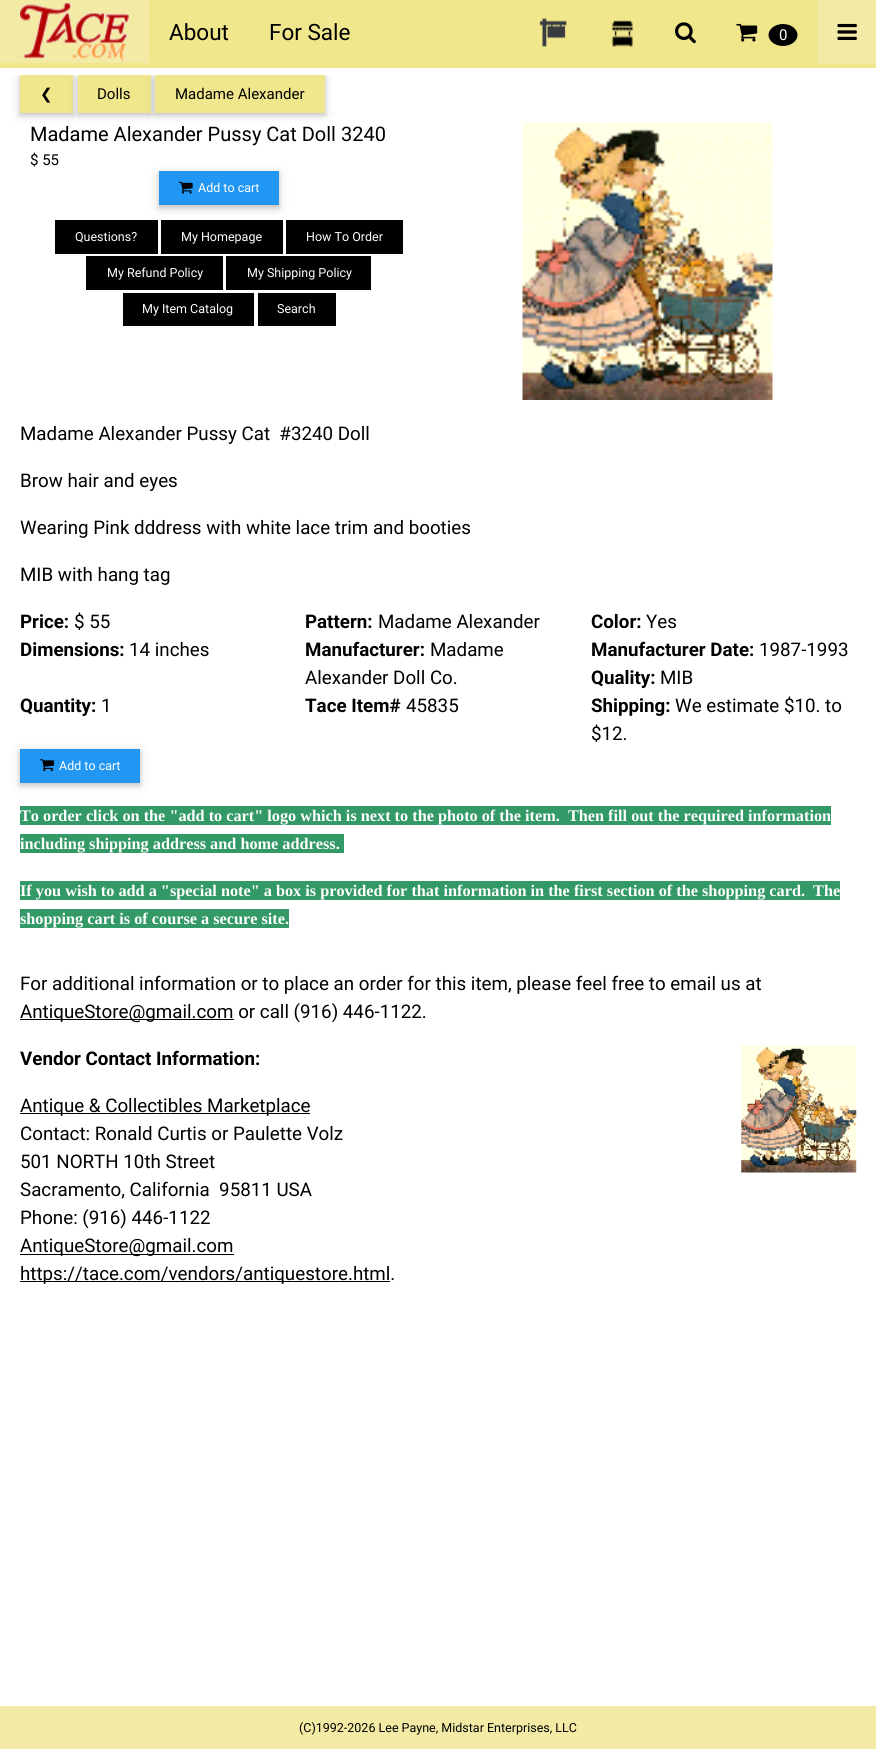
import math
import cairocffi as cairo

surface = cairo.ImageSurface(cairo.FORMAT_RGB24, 876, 1749)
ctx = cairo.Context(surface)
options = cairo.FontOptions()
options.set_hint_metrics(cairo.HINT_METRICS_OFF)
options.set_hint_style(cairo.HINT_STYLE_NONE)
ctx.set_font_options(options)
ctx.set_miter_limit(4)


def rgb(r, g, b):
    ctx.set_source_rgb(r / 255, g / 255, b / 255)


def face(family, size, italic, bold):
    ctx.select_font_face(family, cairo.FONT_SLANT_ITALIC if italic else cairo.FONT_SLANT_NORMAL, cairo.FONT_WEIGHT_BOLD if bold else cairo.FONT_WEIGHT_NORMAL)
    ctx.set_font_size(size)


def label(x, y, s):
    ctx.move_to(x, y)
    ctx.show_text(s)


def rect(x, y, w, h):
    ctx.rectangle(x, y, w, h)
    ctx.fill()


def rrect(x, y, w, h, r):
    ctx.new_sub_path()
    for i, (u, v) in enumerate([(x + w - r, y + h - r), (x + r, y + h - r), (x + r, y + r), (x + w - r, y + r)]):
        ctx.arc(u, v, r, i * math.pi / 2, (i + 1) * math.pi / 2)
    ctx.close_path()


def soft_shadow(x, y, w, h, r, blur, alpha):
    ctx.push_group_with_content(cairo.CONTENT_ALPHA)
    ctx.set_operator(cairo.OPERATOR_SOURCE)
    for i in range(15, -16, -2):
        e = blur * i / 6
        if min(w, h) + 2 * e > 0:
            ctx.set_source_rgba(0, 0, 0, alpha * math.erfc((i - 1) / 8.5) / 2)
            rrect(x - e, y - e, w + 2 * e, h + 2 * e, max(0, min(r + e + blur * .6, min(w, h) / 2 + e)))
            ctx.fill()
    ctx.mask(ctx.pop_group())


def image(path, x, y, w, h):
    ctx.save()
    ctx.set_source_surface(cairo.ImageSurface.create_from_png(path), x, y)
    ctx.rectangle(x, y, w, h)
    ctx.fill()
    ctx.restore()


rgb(255, 255, 255)
ctx.paint()
ctx.save()
ctx.rectangle(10, 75, 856, 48)
ctx.clip()
rgb(0, 0, 0)
soft_shadow(20, 78, 53, 37, 0, 6, 0.12)
ctx.restore()
rgb(0, 0, 0)
soft_shadow(20, 78, 53, 37, 0, 2.5, 0.16)
rgb(240, 230, 140)
rect(20, 75, 53, 38)
ctx.save()
ctx.rectangle(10, 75, 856, 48)
ctx.clip()
rgb(0, 0, 0)
soft_shadow(78, 78, 73, 37, 0, 6, 0.12)
ctx.restore()
rgb(0, 0, 0)
soft_shadow(78, 78, 73, 37, 0, 2.5, 0.16)
rgb(240, 230, 140)
rect(78, 75, 73, 38)
ctx.save()
ctx.rectangle(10, 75, 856, 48)
ctx.clip()
rgb(0, 0, 0)
soft_shadow(155, 78, 170, 37, 0, 6, 0.12)
ctx.restore()
rect(0, 0, 876, 68)
rgb(243, 235, 165)
rect(0, 0, 149, 63)
image('image0.png', 20, 3, 109, 58)
face('Roboto', 22.5, 0, 0)
rgb(0, 0, 0)
label(169, 40, 'About')
label(269, 40, 'For Sale')
image('image1.png', 539, 18, 28, 29)
image('image2.png', 611, 20, 23, 27)
image('image3.png', 675, 22, 21, 22)
image('image4.png', 736, 23, 22, 19)
ctx.new_path()
ctx.move_to(783, 24)
ctx.curve_to(791, 24, 797.5, 29, 797.5, 35)
ctx.curve_to(797.5, 41, 791, 46, 783, 46)
ctx.curve_to(775, 46, 768.5, 41, 768.5, 35)
ctx.curve_to(768.5, 29, 775, 24, 783, 24)
ctx.close_path()
ctx.fill()
face('Roboto', 15, 0, 0)
rgb(255, 255, 255)
label(779, 40, '0')
rgb(243, 235, 165)
rect(818, 0, 58, 64)
image('image5.png', 837, 23, 20, 17)
face('DejaVu Sans', 15, 0, 0)
rgb(0, 0, 0)
label(40, 99, '❮')
face('Roboto', 15, 0, 0)
label(97, 99, 'Dolls')
rgb(0, 0, 0)
soft_shadow(155, 78, 170, 37, 0, 2.5, 0.16)
rgb(240, 230, 140)
rect(155, 75, 170, 38)
rgb(0, 0, 0)
label(175, 99, 'Madame Alexander')
face('Roboto', 20, 0, 0)
label(30, 141, 'Madame Alexander Pussy Cat Doll 3240')
face('Roboto', 15, 0, 0)
label(30, 165, '$ 55')
rgb(0, 0, 0)
soft_shadow(159, 174, 120, 34, 0, 6, 0.12)
soft_shadow(159, 174, 120, 34, 0, 2.5, 0.16)
rgb(33, 150, 243)
rect(159, 171, 120, 34)
image('image6.png', 178, 181, 15, 13)
face('Roboto', 12.5, 0, 0)
rgb(255, 255, 255)
label(198, 192, 'Add to cart')
rgb(0, 0, 0)
rect(55, 220, 103, 34)
rgb(255, 255, 255)
label(75, 241, 'Questions?')
rgb(0, 0, 0)
rect(161, 220, 122, 34)
rgb(255, 255, 255)
label(181, 241, 'My Homepage')
rgb(0, 0, 0)
rect(286, 220, 117, 34)
rgb(255, 255, 255)
label(306, 241, 'How To Order')
rgb(0, 0, 0)
rect(86, 256, 137, 34)
rgb(255, 255, 255)
label(107, 277, 'My Refund Policy')
rgb(0, 0, 0)
rect(226, 256, 145, 34)
rgb(255, 255, 255)
label(247, 277, 'My Shipping Policy')
rgb(0, 0, 0)
rect(123, 293, 131, 33)
rgb(255, 255, 255)
label(142, 313, 'My Item Catalog')
rgb(0, 0, 0)
rect(258, 293, 78, 33)
rgb(255, 255, 255)
label(277, 313, 'Search')
image('image7.png', 522, 122, 251, 278)
face('Roboto', 18.75, 0, 0)
rgb(0, 0, 0)
label(20, 440, 'Madame Alexander Pussy Cat  #3240 Doll')
label(20, 487, 'Brow hair and eyes')
label(20, 534, 'Wearing Pink dddress with white lace trim and booties')
label(20, 581, 'MIB with hang tag')
face('Roboto', 18.75, 0, 1)
label(20, 628, 'Price:')
face('Roboto', 18.75, 0, 0)
label(74, 628, '$ 55')
face('Roboto', 18.75, 0, 1)
label(305, 628, 'Pattern:')
face('Roboto', 18.75, 0, 0)
label(378, 628, 'Madame Alexander')
face('Roboto', 18.75, 0, 1)
label(591, 628, 'Color:')
face('Roboto', 18.75, 0, 0)
label(646, 628, 'Yes')
face('Roboto', 18.75, 0, 1)
label(20, 656, 'Dimensions:')
face('Roboto', 18.75, 0, 0)
label(129, 656, '14 inches')
face('Roboto', 18.75, 0, 1)
label(305, 656, 'Manufacturer:')
face('Roboto', 18.75, 0, 0)
label(430, 656, 'Madame')
label(305, 684, 'Alexander Doll Co.')
face('Roboto', 18.75, 0, 1)
label(591, 656, 'Manufacturer Date:')
face('Roboto', 18.75, 0, 0)
label(759, 656, '1987-1993')
face('Roboto', 18.75, 0, 1)
label(591, 684, 'Quality:')
face('Roboto', 18.75, 0, 0)
label(660, 684, 'MIB')
face('Roboto', 18.75, 0, 1)
label(20, 712, 'Quantity:')
face('Roboto', 18.75, 0, 0)
label(101, 712, '1')
face('Roboto', 18.75, 0, 1)
label(305, 712, 'Tace Item#')
face('Roboto', 18.75, 0, 0)
label(406, 712, '45835')
face('Roboto', 18.75, 0, 1)
label(591, 712, 'Shipping:')
face('Roboto', 18.75, 0, 0)
label(675, 712, 'We estimate $10. to')
label(591, 740, '$12.')
rgb(0, 0, 0)
soft_shadow(20, 751, 120, 34, 0, 6, 0.12)
soft_shadow(20, 751, 120, 34, 0, 2.5, 0.16)
rgb(33, 150, 243)
rect(20, 749, 120, 34)
image('image8.png', 40, 759, 14, 13)
face('Roboto', 12.5, 0, 0)
rgb(255, 255, 255)
label(59, 770, 'Add to cart')
rgb(51, 153, 102)
rect(20, 806, 811, 19)
face('Liberation Serif', 16.25, 0, 1)
rgb(255, 255, 255)
label(20, 821, 'To order click on the "add to cart" logo which is next to the photo of the item.  Then fill out the required information')
rgb(51, 153, 102)
rect(20, 834, 324, 19)
rgb(255, 255, 255)
label(20, 849, 'including shipping address and home address.')
rgb(51, 153, 102)
rect(20, 881, 820, 19)
rgb(255, 255, 255)
label(20, 896, 'If you wish to add a "special note" a box is provided for that information in the first section of the shopping card.  The')
rgb(51, 153, 102)
rect(20, 909, 269, 19)
rgb(255, 255, 255)
label(20, 924, 'shopping cart is of course a secure site.')
face('Roboto', 18.75, 0, 0)
rgb(0, 0, 0)
label(20, 990, 'For additional information or to place an order for this item, please feel free to email us at')
rect(20, 1019, 214, 1)
label(20, 1018, 'AntiqueStore@gmail.com or call (916) 446-1122.')
face('Roboto', 18.75, 0, 1)
label(20, 1065, 'Vendor Contact Information:')
image('image9.png', 741, 1045, 116, 128)
rect(20, 1113, 290, 1)
face('Roboto', 18.75, 0, 0)
label(20, 1112, 'Antique & Collectibles Marketplace')
label(20, 1140, 'Contact: Ronald Curtis or Paulette Volz')
label(20, 1168, '501 NORTH 10th Street')
label(20, 1196, 'Sacramento, California  95811 USA')
label(20, 1224, 'Phone: (916) 446-1122')
rect(20, 1254, 214, 1)
label(20, 1252, 'AntiqueStore@gmail.com')
rect(20, 1281, 370, 1)
label(20, 1280, 'https://tace.com/vendors/antiquestore.html.')
rgb(243, 235, 165)
rect(0, 1706, 876, 43)
face('Roboto', 12.5, 0, 0)
rgb(0, 0, 0)
label(299, 1732, '(C)1992-2026 Lee Payne, Midstar Enterprises, LLC')
surface.write_to_png('render.png')
